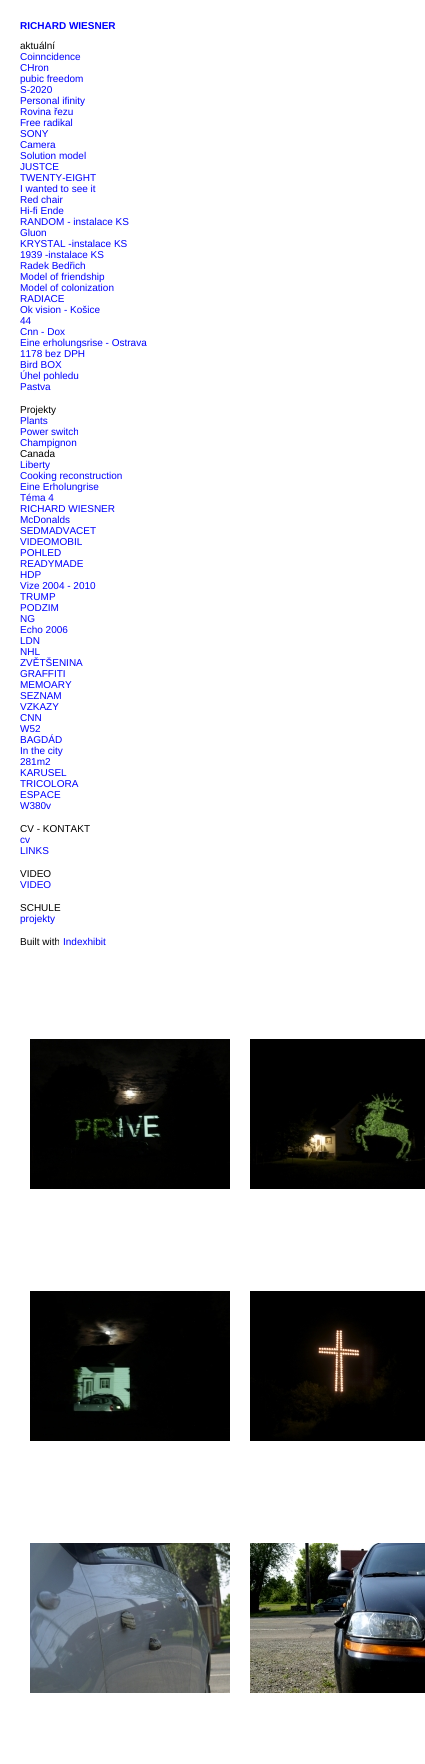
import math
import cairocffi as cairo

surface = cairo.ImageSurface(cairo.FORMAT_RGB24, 425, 1764)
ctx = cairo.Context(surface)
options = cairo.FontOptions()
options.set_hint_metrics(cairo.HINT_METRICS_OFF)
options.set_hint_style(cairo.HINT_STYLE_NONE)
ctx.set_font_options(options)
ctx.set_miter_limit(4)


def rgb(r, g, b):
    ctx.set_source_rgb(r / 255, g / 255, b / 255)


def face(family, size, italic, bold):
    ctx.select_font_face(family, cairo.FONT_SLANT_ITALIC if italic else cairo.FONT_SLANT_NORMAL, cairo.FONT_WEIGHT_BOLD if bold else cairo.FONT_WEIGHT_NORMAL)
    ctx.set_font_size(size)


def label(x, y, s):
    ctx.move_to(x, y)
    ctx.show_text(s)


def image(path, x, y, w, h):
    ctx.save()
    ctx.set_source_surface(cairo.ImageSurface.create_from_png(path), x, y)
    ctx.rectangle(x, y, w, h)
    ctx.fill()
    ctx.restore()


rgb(255, 255, 255)
ctx.paint()
face('Liberation Sans', 10, 0, 1)
rgb(0, 0, 255)
label(20, 29, 'RICHARD WIESNER')
face('Liberation Sans', 10, 0, 0)
rgb(0, 0, 0)
label(20, 49, 'aktuální')
rgb(0, 0, 255)
label(20, 60, 'Coinncidence')
label(20, 71, 'CHron')
label(20, 82, 'pubic freedom')
label(20, 93, 'S-2020')
label(20, 104, 'Personal ifinity')
label(20, 115, 'Rovina řezu')
label(20, 126, 'Free radikal')
label(20, 137, 'SONY')
label(20, 148, 'Camera')
label(20, 159, 'Solution model')
label(20, 170, 'JUSTCE')
label(20, 181, 'TWENTY-EIGHT')
label(20, 192, 'I wanted to see it')
label(20, 203, 'Red chair')
label(20, 214, 'Hi-fi Ende')
label(20, 225, 'RANDOM - instalace KS')
label(20, 236, 'Gluon')
label(20, 247, 'KRYSTAL -instalace KS')
label(20, 258, '1939 -instalace KS')
label(20, 269, 'Radek Bedřich')
label(20, 280, 'Model of friendship')
label(20, 291, 'Model of colonization')
label(20, 302, 'RADIACE')
label(20, 313, 'Ok vision - Košice')
label(20, 324, '44')
label(20, 335, 'Cnn - Dox')
label(20, 346, 'Eine erholungsrise - Ostrava')
label(20, 357, '1178 bez DPH')
label(20, 368, 'Bird BOX')
label(20, 379, 'Úhel pohledu')
label(20, 390, 'Pastva')
rgb(0, 0, 0)
label(20, 413, 'Projekty')
rgb(0, 0, 255)
label(20, 424, 'Plants')
label(20, 435, 'Power switch')
label(20, 446, 'Champignon')
rgb(0, 0, 0)
label(20, 457, 'Canada')
rgb(0, 0, 255)
label(20, 468, 'Liberty')
label(20, 479, 'Cooking reconstruction')
label(20, 490, 'Eine Erholungrise')
label(20, 501, 'Téma 4')
label(20, 512, 'RICHARD WIESNER')
label(20, 523, 'McDonalds')
label(20, 534, 'SEDMADVACET')
label(20, 545, 'VIDEOMOBIL')
label(20, 556, 'POHLED')
label(20, 567, 'READYMADE')
label(20, 578, 'HDP')
label(20, 589, 'Vize 2004 - 2010')
label(20, 600, 'TRUMP')
label(20, 611, 'PODZIM')
label(20, 622, 'NG')
label(20, 633, 'Echo 2006')
label(20, 644, 'LDN')
label(20, 655, 'NHL')
label(20, 666, 'ZVĚTŠENINA')
label(20, 677, 'GRAFFITI')
label(20, 688, 'MEMOARY')
label(20, 699, 'SEZNAM')
label(20, 710, 'VZKAZY')
label(20, 721, 'CNN')
label(20, 732, 'W52')
label(20, 743, 'BAGDÁD')
label(20, 754, 'In the city')
label(20, 765, '281m2')
label(20, 776, 'KARUSEL')
label(20, 787, 'TRICOLORA')
label(20, 798, 'ESPACE')
label(20, 809, 'W380v')
rgb(0, 0, 0)
label(20, 832, 'CV - KONTAKT')
rgb(0, 0, 255)
label(20, 843, 'cv')
label(20, 854, 'LINKS')
rgb(0, 0, 0)
label(20, 877, 'VIDEO')
rgb(0, 0, 255)
label(20, 888, 'VIDEO')
rgb(0, 0, 0)
label(20, 911, 'SCHULE')
rgb(0, 0, 255)
label(20, 922, 'projekty')
rgb(0, 0, 0)
label(20, 945, 'Built with')
rgb(0, 0, 255)
label(63, 945, 'Indexhibit')
image('image0.png', 30, 1039, 200, 150)
image('image1.png', 250, 1039, 175, 150)
image('image2.png', 30, 1291, 200, 150)
image('image3.png', 250, 1291, 175, 150)
image('image4.png', 30, 1543, 200, 150)
image('image5.png', 250, 1543, 175, 150)
surface.write_to_png('render.png')
